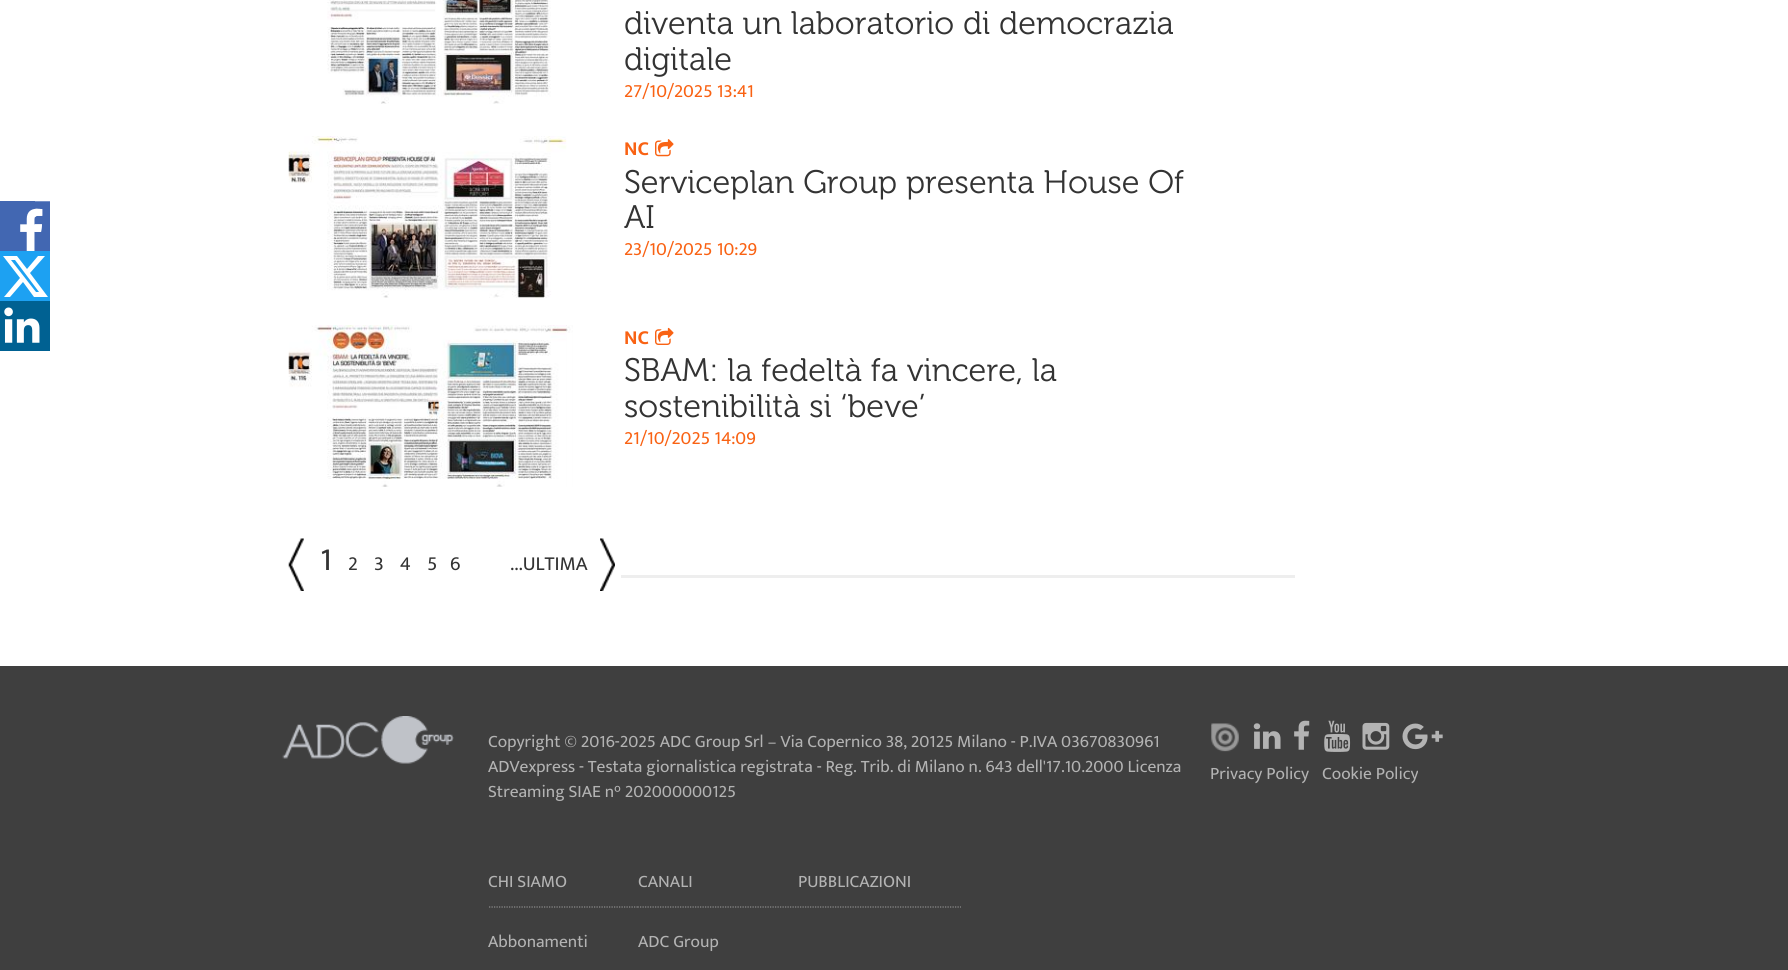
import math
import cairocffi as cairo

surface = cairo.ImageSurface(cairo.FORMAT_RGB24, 1788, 970)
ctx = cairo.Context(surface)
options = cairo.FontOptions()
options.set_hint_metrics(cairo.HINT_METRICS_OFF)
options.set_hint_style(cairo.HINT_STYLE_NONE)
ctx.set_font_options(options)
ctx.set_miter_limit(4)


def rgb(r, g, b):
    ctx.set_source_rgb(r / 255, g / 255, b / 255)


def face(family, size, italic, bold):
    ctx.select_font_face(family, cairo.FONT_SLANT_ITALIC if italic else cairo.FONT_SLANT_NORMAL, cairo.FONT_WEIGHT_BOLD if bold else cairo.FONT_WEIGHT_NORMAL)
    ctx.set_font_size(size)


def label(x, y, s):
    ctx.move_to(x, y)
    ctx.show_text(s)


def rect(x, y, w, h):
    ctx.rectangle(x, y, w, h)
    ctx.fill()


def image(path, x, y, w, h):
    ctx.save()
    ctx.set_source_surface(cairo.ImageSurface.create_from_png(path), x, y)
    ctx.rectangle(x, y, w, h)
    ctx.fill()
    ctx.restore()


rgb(255, 255, 255)
ctx.paint()
rgb(66, 103, 178)
rect(0, 201, 35, 50)
image('image0.png', 20, 201, 30, 50)
ctx.save()
ctx.rectangle(0, 251, 50, 50)
ctx.clip()
rgb(29, 161, 242)
ctx.new_path()
ctx.move_to(260, 551)
ctx.line_to(0, 551)
ctx.line_to(0, 251)
ctx.line_to(300, 251)
ctx.line_to(300, 551)
ctx.close_path()
ctx.fill()
ctx.restore()
rgb(255, 255, 255)
ctx.new_path()
ctx.move_to(38, 256)
ctx.line_to(45, 256)
ctx.line_to(30, 273)
ctx.line_to(48, 297)
ctx.line_to(34, 297)
ctx.line_to(23, 282)
ctx.line_to(10, 297)
ctx.line_to(4, 297)
ctx.line_to(20, 278)
ctx.line_to(3, 256)
ctx.line_to(17, 256)
ctx.line_to(27, 269)
ctx.close_path()
ctx.move_to(36, 292)
ctx.line_to(39, 292)
ctx.line_to(15, 260)
ctx.line_to(11, 260)
ctx.close_path()
ctx.fill()
rgb(0, 97, 146)
rect(0, 301, 50, 50)
image('image1.png', 4, 307, 36, 36)
image('image2.png', 327, 0, 224, 104)
face('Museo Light', 32.5, 0, 0)
rgb(51, 51, 51)
label(624, 34, 'diventa un laboratorio di democrazia')
label(624, 70, 'digitale')
face('Ek Mukta', 18.75, 0, 0)
rgb(249, 98, 19)
label(624, 97, '27/10/2025 13:41')
image('image3.png', 288, 136, 279, 162)
face('Ek Mukta', 20, 0, 1)
label(624, 155, 'NC')
image('image4.png', 655, 139, 19, 18)
face('Museo Light', 32.5, 0, 0)
rgb(51, 51, 51)
label(624, 193, 'Serviceplan Group presenta House Of')
label(624, 228, 'AI')
face('Ek Mukta', 18.75, 0, 0)
rgb(249, 98, 19)
label(624, 255, '23/10/2025 10:29')
image('image5.png', 288, 325, 285, 162)
face('Ek Mukta', 20, 0, 1)
label(624, 344, 'NC')
image('image6.png', 655, 327, 19, 18)
face('Museo Light', 32.5, 0, 0)
rgb(51, 51, 51)
label(624, 381, 'SBAM: la fedeltà fa vincere, la')
label(624, 417, 'sostenibilità si ‘beve’')
face('Ek Mukta', 18.75, 0, 0)
rgb(249, 98, 19)
label(624, 444, '21/10/2025 14:09')
image('image7.png', 288, 538, 16, 53)
face('Ek Mukta', 32.5, 0, 0)
rgb(51, 51, 51)
label(320, 570, '1')
face('Ek Mukta', 20, 0, 0)
label(348, 570, '2')
label(374, 570, '3')
label(400, 570, '4')
label(427, 570, '5')
label(450, 570, '6')
label(510, 570, '...ULTIMA')
image('image8.png', 600, 538, 15, 53)
rgb(238, 238, 238)
rect(621, 575, 674, 3)
rgb(63, 63, 63)
rect(0, 666, 1788, 304)
image('image9.png', 282, 716, 172, 48)
face('Ek Mukta', 17.5, 0, 0)
rgb(179, 179, 179)
label(488, 747, 'Copyright © 2016-2025 ADC Group Srl – Via Copernico 38, 20125 Milano - P.IVA 03670830961')
label(488, 772, 'ADVexpress - Testata giornalistica registrata - Reg. Trib. di Milano n. 643 dell\'17.10.2000 Licenza')
label(488, 797, 'Streaming SIAE n° 202000000125')
ctx.new_path()
ctx.move_to(489, 907)
ctx.line_to(637.5, 907)
rgb(141, 141, 141)
ctx.set_line_width(1.2)
ctx.set_dash([1.25, 1.25])
ctx.stroke()
rgb(179, 179, 179)
label(488, 887, 'CHI SIAMO')
label(488, 947, 'Abbonamenti')
ctx.new_path()
ctx.move_to(637.5, 907)
ctx.line_to(797.5, 907)
rgb(141, 141, 141)
ctx.stroke()
rgb(179, 179, 179)
label(638, 887, 'CANALI')
label(638, 947, 'ADC Group')
ctx.new_path()
ctx.move_to(797.5, 907)
ctx.line_to(961, 907)
rgb(141, 141, 141)
ctx.stroke()
rgb(179, 179, 179)
label(798, 887, 'PUBBLICAZIONI')
image('image10.png', 1211, 723, 28, 29)
image('image11.png', 1253, 723, 28, 26)
image('image12.png', 1294, 720, 16, 30)
image('image13.png', 1324, 720, 27, 32)
image('image14.png', 1362, 722, 28, 28)
image('image15.png', 1402, 723, 41, 27)
label(1210, 779, 'Privacy Policy')
label(1322, 779, 'Cookie Policy')
surface.write_to_png('render.png')
